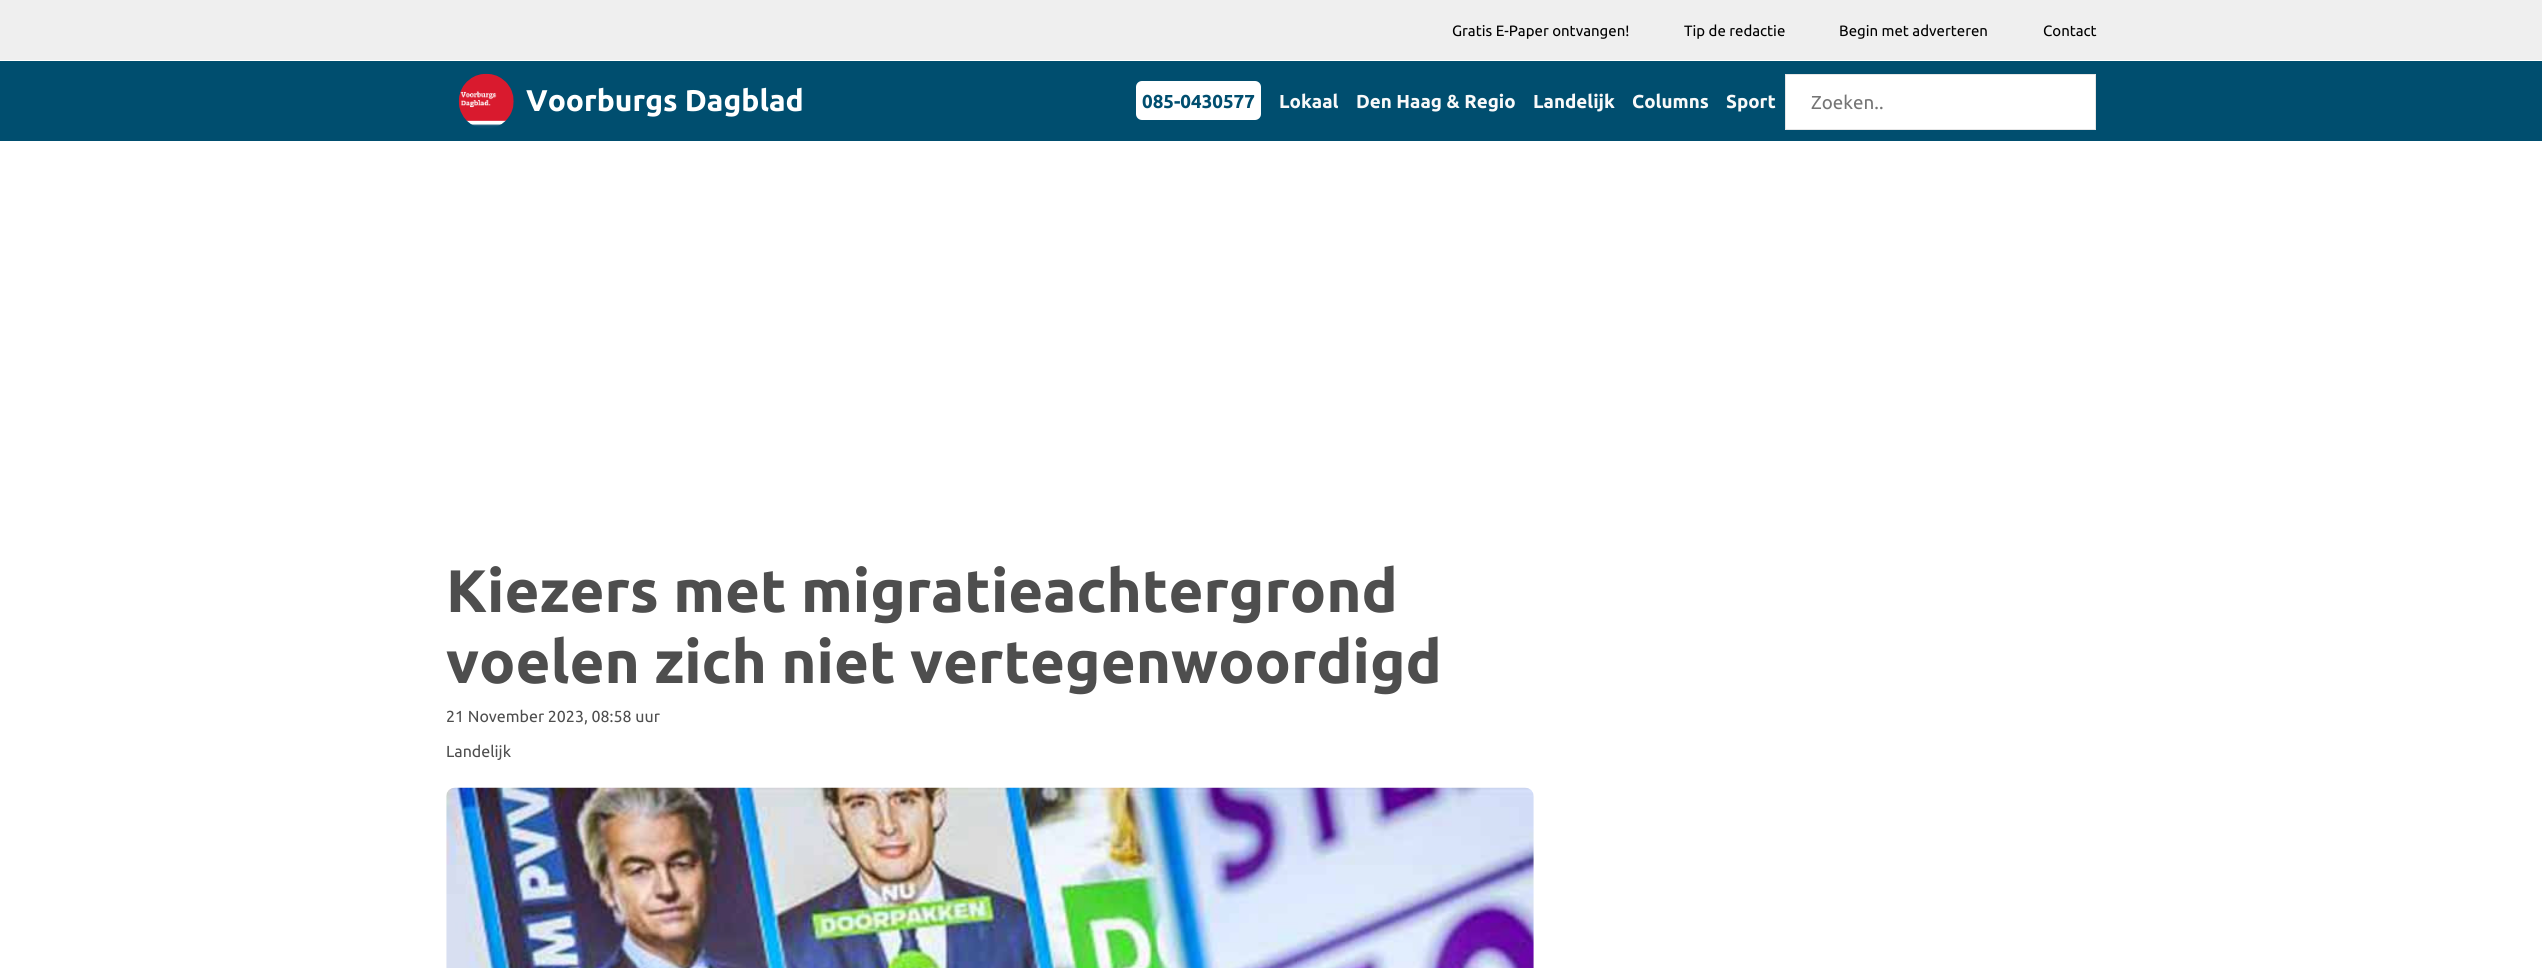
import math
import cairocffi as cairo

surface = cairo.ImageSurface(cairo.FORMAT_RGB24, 2542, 968)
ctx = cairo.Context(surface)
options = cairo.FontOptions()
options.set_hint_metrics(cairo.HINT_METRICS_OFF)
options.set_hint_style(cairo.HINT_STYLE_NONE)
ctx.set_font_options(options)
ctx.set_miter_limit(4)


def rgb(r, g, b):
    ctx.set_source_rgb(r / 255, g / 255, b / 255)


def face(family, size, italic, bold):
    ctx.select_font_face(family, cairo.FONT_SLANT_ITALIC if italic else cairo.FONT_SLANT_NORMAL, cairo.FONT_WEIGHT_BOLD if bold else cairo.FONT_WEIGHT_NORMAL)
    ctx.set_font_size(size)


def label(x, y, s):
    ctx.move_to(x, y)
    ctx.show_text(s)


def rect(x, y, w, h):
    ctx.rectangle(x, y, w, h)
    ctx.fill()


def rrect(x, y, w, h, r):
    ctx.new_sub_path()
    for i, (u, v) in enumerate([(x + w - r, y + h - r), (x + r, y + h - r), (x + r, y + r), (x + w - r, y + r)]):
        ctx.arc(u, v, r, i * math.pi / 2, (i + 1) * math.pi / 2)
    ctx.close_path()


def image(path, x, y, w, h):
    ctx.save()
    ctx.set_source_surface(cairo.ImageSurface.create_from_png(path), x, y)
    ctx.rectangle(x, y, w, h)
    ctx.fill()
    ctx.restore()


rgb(255, 255, 255)
ctx.paint()
rgb(239, 239, 239)
rect(0, 0, 2542, 60)
face('Ubuntu', 15, 0, 0)
rgb(0, 0, 0)
label(1452, 36, 'Gratis E-Paper ontvangen!')
label(1684, 36, 'Tip de redactie')
label(1839, 36, 'Begin met adverteren')
label(2043, 36, 'Contact')
rgb(0, 78, 111)
rect(0, 61, 2542, 80)
image('image0.png', 458, 73, 56, 56)
face('Ubuntu', 30, 0, 1)
rgb(255, 255, 255)
label(526, 111, 'Voorburgs Dagblad')
rrect(1136, 81, 125, 39, 6)
ctx.fill()
face('Ubuntu', 18.75, 0, 1)
rgb(0, 78, 111)
label(1142, 108, '085-0430577')
rgb(249, 249, 249)
label(1279, 108, 'Lokaal')
label(1356, 108, 'Den Haag & Regio')
label(1533, 108, 'Landelijk')
label(1632, 108, 'Columns')
label(1726, 108, 'Sport')
rgb(255, 255, 255)
ctx.rectangle(1785.5, 74.5, 310, 55)
ctx.fill_preserve()
rgb(230, 230, 230)
ctx.set_line_width(1)
ctx.stroke()
face('Ubuntu', 18.75, 0, 0)
rgb(117, 117, 117)
label(1811, 109, 'Zoeken..')
face('Ubuntu', 60, 0, 1)
rgb(78, 78, 78)
label(446, 612, 'Kiezers met migratieachtergrond')
label(446, 683, 'voelen zich niet vertegenwoordigd')
face('Ubuntu', 16, 0, 0)
label(446, 722, '21 November 2023, 08:58 uur')
label(446, 757, 'Landelijk')
image('image1.png', 446, 787, 1088, 181)
surface.write_to_png('render.png')
